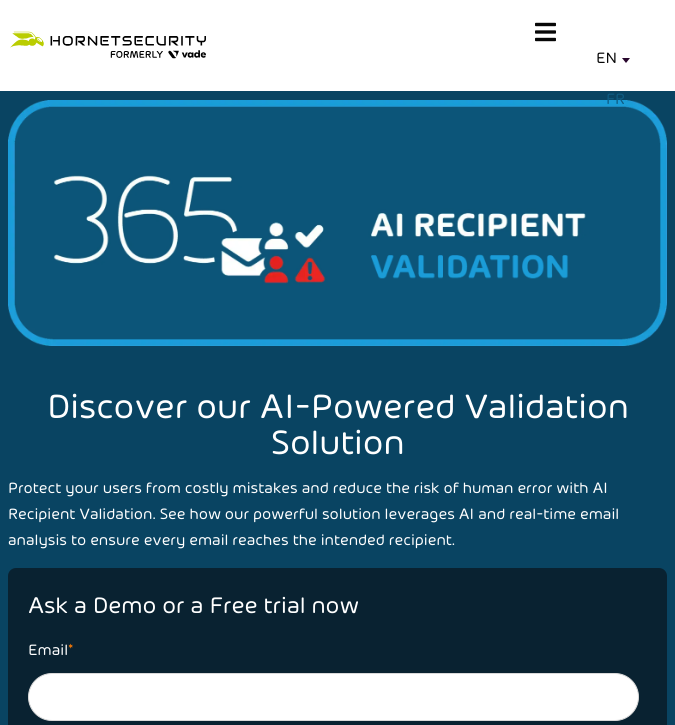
import math
import cairocffi as cairo

surface = cairo.ImageSurface(cairo.FORMAT_RGB24, 675, 725)
ctx = cairo.Context(surface)
options = cairo.FontOptions()
options.set_hint_metrics(cairo.HINT_METRICS_OFF)
options.set_hint_style(cairo.HINT_STYLE_NONE)
ctx.set_font_options(options)
ctx.set_miter_limit(4)


def rgb(r, g, b):
    ctx.set_source_rgb(r / 255, g / 255, b / 255)


def face(family, size, italic, bold):
    ctx.select_font_face(family, cairo.FONT_SLANT_ITALIC if italic else cairo.FONT_SLANT_NORMAL, cairo.FONT_WEIGHT_BOLD if bold else cairo.FONT_WEIGHT_NORMAL)
    ctx.set_font_size(size)


def label(x, y, s):
    ctx.move_to(x, y)
    ctx.show_text(s)


def rect(x, y, w, h):
    ctx.rectangle(x, y, w, h)
    ctx.fill()


def rrect(x, y, w, h, r):
    ctx.new_sub_path()
    for i, (u, v) in enumerate([(x + w - r, y + h - r), (x + r, y + h - r), (x + r, y + r), (x + w - r, y + r)]):
        ctx.arc(u, v, r, i * math.pi / 2, (i + 1) * math.pi / 2)
    ctx.close_path()


def image(path, x, y, w, h):
    ctx.save()
    ctx.set_source_surface(cairo.ImageSurface.create_from_png(path), x, y)
    ctx.rectangle(x, y, w, h)
    ctx.fill()
    ctx.restore()


rgb(9, 68, 98)
ctx.paint()
rgb(255, 255, 255)
rect(0, 0, 675, 91)
image('image0.png', 10, 31, 196, 28)
image('image1.png', 535, 22, 21, 20)
face('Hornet', 16, 0, 0)
rgb(7, 7, 7)
label(596, 63, 'EN')
rgb(40, 6, 45)
ctx.new_path()
ctx.move_to(622, 58)
ctx.line_to(630, 58)
ctx.line_to(626, 63)
ctx.close_path()
ctx.fill()
image('image2.png', 8, 100, 659, 246)
rgb(14, 91, 129)
label(606, 104, 'FR')
face('Hornet', 36, 0, 0)
rgb(255, 255, 255)
label(47, 418, 'Discover our AI-Powered Validation')
label(271, 454, 'Solution')
face('Hornet', 16, 0, 0)
label(8, 493, 'Protect your users from costly mistakes and reduce the risk of human error with AI')
label(8, 519, 'Recipient Validation. See how our powerful solution leverages AI and real-time email')
label(8, 545, 'analysis to ensure every email reaches the intended recipient.')
rgb(9, 34, 49)
rrect(8, 568, 659, 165, 8)
ctx.fill()
face('Hornet', 24, 0, 0)
rgb(255, 255, 255)
label(28, 613, 'Ask a Demo or a Free trial now')
face('Hornet', 16, 0, 0)
label(28, 655, 'Email')
rgb(232, 115, 8)
label(68, 655, '*')
rgb(255, 255, 255)
rrect(28.5, 673.5, 610, 47, 23.5)
ctx.fill_preserve()
rgb(217, 217, 217)
ctx.set_line_width(1)
ctx.stroke()
surface.write_to_png('render.png')
